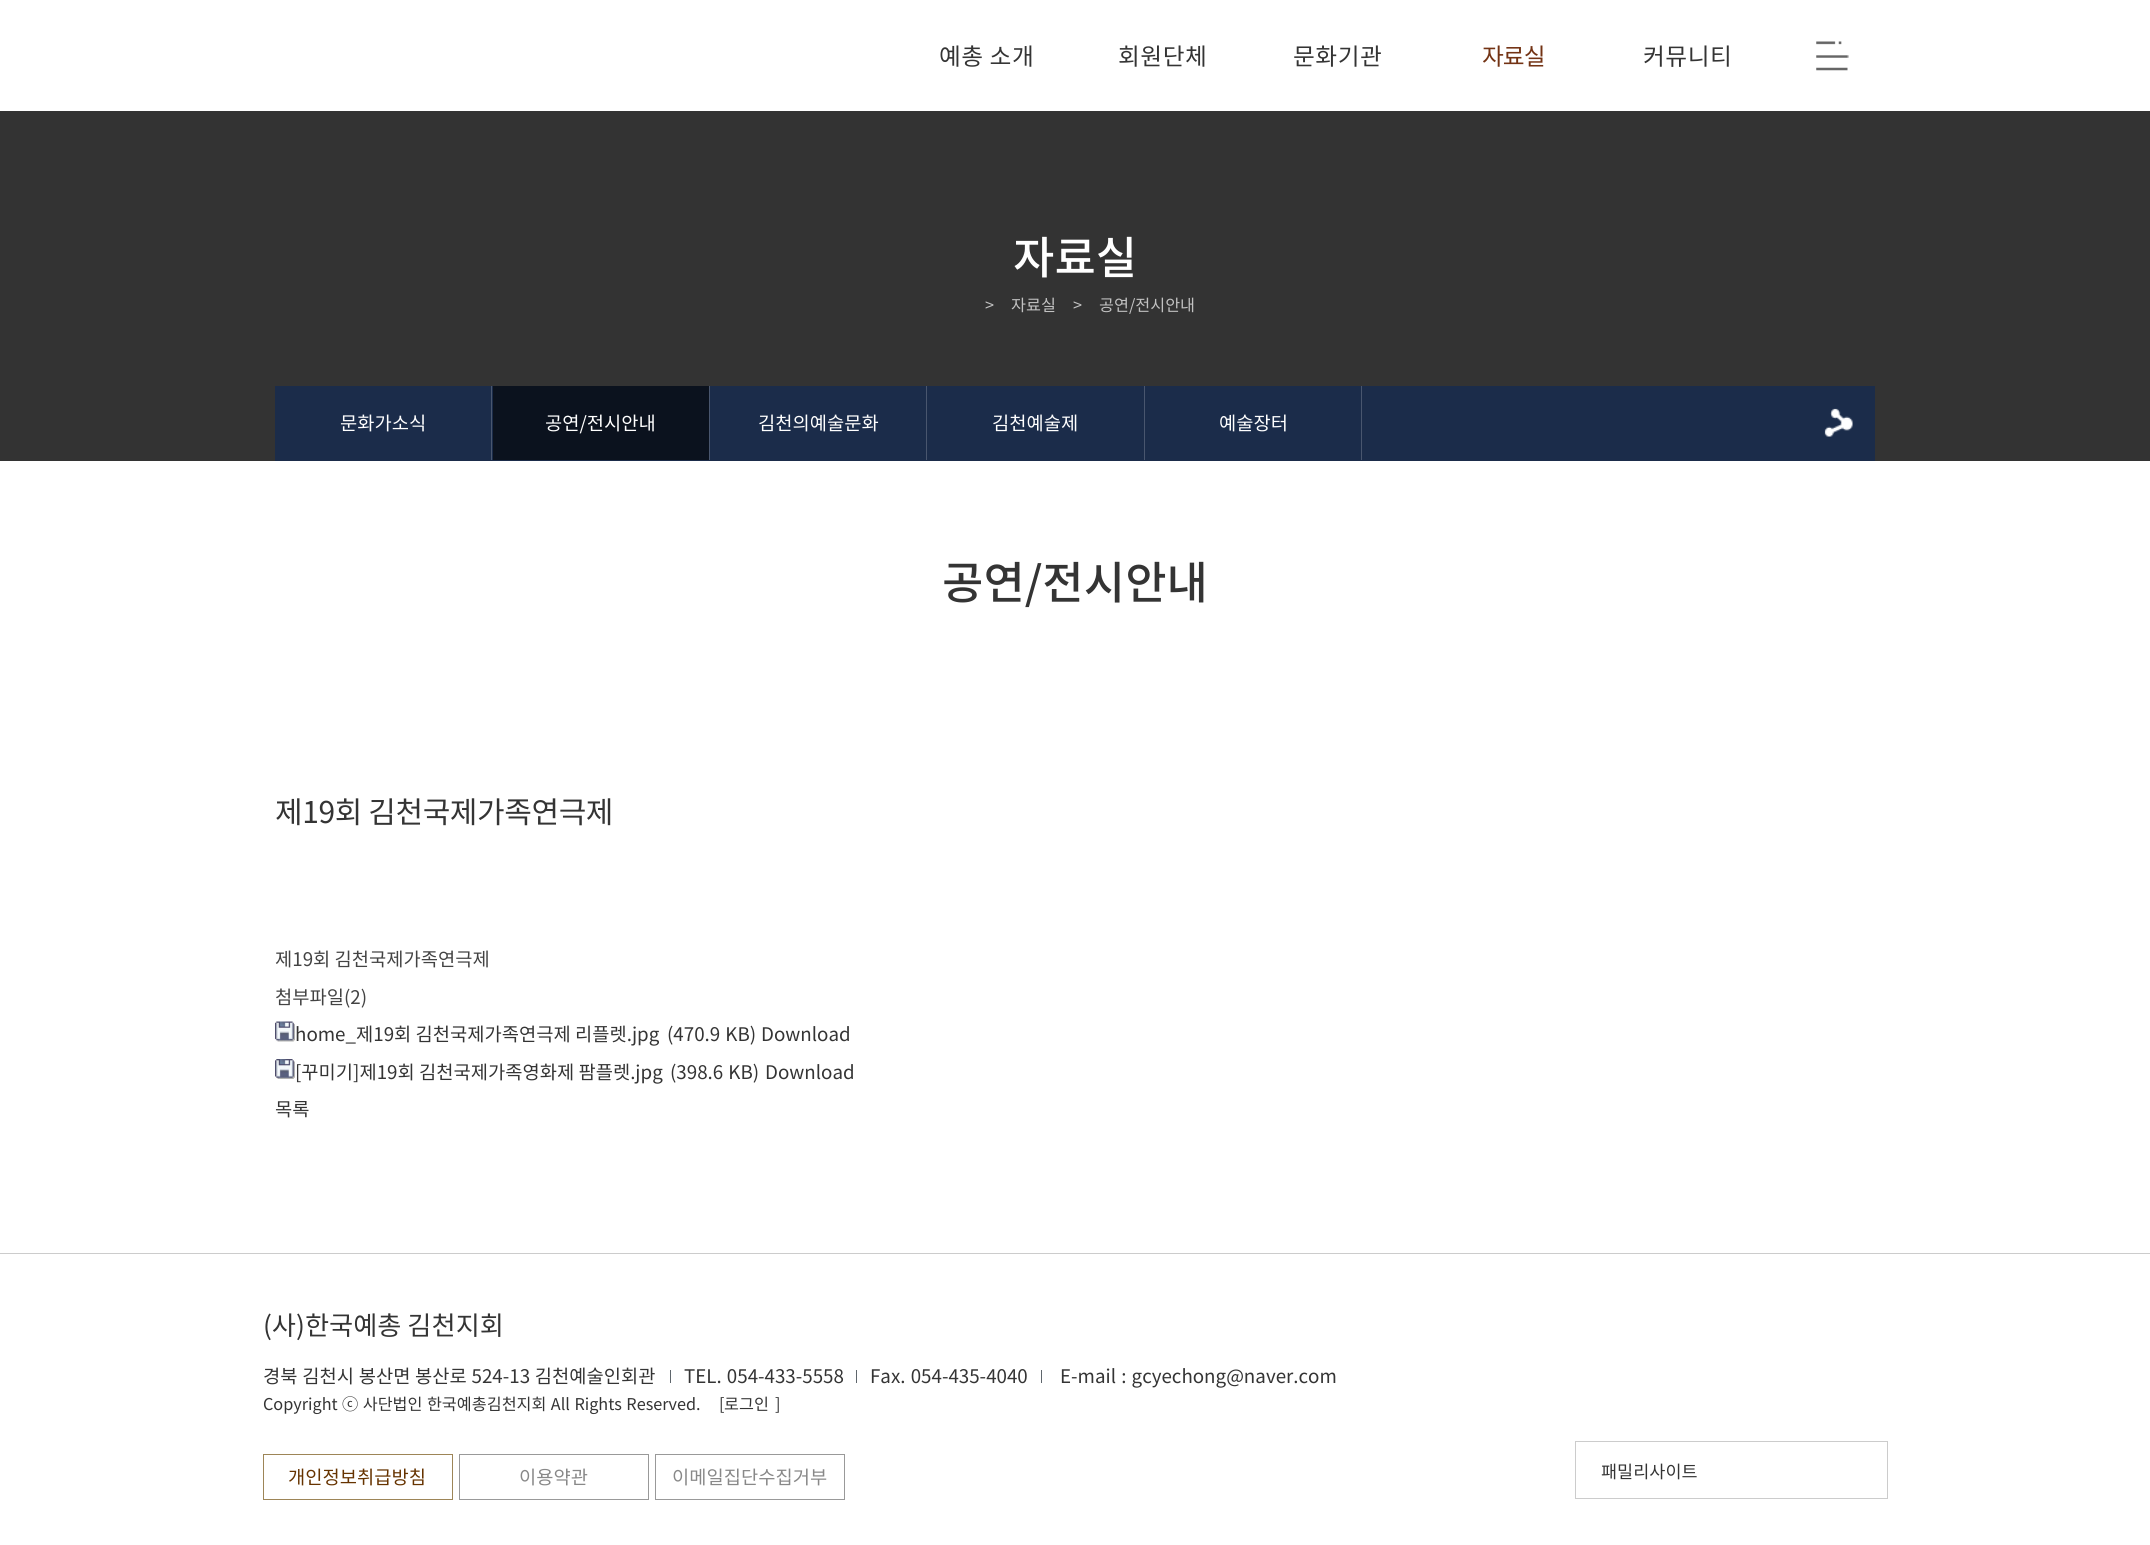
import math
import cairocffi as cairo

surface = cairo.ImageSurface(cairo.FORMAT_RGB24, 2150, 1545)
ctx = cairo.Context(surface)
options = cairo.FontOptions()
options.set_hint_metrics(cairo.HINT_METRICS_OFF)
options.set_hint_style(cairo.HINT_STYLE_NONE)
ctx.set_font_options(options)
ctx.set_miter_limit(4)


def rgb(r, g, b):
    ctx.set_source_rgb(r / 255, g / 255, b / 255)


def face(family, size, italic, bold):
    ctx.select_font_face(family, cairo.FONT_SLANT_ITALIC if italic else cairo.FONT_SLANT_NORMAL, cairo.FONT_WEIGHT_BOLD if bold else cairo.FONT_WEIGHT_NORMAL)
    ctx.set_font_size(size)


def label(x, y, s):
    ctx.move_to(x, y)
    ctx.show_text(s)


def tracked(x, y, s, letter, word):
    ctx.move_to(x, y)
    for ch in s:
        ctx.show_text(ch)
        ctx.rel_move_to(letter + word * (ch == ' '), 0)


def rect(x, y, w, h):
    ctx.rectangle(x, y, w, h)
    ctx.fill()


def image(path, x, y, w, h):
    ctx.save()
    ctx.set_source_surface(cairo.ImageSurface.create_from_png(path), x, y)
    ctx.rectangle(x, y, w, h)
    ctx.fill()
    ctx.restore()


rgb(255, 255, 255)
ctx.paint()
face('Noto Sans KR', 23.75, 0, 0)
rgb(52, 52, 52)
tracked(939, 65, '예총 소개', 0.5, 0)
tracked(1118, 65, '회원단체', 0.5, 0)
tracked(1293, 65, '문화기관', 0.5, 0)
rgb(115, 51, 20)
tracked(1482, 65, '자료실', -1, 0)
rgb(52, 52, 52)
tracked(1643, 65, '커뮤니티', 0.5, 0)
image('image0.png', 1816, 41, 33, 30)
rgb(51, 51, 51)
rect(0, 111, 2150, 350)
face('Noto Sans KR Medium', 45, 0, 0)
rgb(255, 255, 255)
label(1013, 274, '자료실')
face('Noto Sans KR', 16.25, 0, 0)
rgb(194, 194, 194)
label(985, 311, '>')
label(1011, 311, '자료실')
label(1073, 311, '>')
label(1099, 311, '공연/전시안내')
rgb(27, 44, 74)
rect(275, 386, 1600, 75)
rgb(73, 86, 110)
rect(491, 386, 1, 74)
face('Noto Sans KR', 18.75, 0, 0)
rgb(255, 255, 255)
label(340, 430, '문화가소식')
rgb(73, 86, 110)
rect(709, 386, 1, 74)
rgb(11, 18, 30)
rect(493, 386, 216, 74)
rgb(255, 255, 255)
label(545, 430, '공연/전시안내')
rgb(73, 86, 110)
rect(926, 386, 1, 74)
rgb(255, 255, 255)
label(758, 430, '김천의예술문화')
rgb(73, 86, 110)
rect(1144, 386, 1, 74)
rgb(255, 255, 255)
label(992, 430, '김천예술제')
rgb(73, 86, 110)
rect(1361, 386, 1, 74)
rgb(255, 255, 255)
label(1219, 430, '예술장터')
image('image1.png', 1824, 408, 29, 29)
face('Noto Sans KR Medium', 45, 0, 0)
rgb(52, 52, 52)
label(942, 599, '공연/전시안내')
face('Noto Sans KR', 30, 0, 0)
tracked(275, 823, '제19회 김천국제가족연극제', -0.4, 0)
face('Noto Sans KR', 18.75, 0, 0)
rgb(67, 67, 67)
label(275, 966, '제19회 김천국제가족연극제')
label(275, 1004, '첨부파일(2)')
image('image2.png', 275, 1021, 20, 21)
rgb(52, 52, 52)
label(295, 1041, 'home_제19회 김천국제가족연극제 리플렛.jpg')
tracked(667, 1041, '(470.9 KB)', 0, 1)
label(761, 1041, 'Download')
image('image3.png', 275, 1059, 20, 20)
label(295, 1079, '[꾸미기]제19회 김천국제가족영화제 팜플렛.jpg')
tracked(670, 1079, '(398.6 KB)', 0, 1)
label(765, 1079, 'Download')
label(275, 1116, '목록')
rgb(204, 204, 204)
rect(0, 1253, 2150, 1)
face('Noto Sans KR', 26.25, 0, 0)
rgb(52, 52, 52)
label(263, 1335, '(사)한국예총 김천지회')
face('Noto Sans KR', 18.75, 0, 0)
tracked(263, 1383, '경북 김천시 봉산면 봉산로 524-13 김천예술인회관', 0, 0.5)
rgb(95, 102, 108)
rect(670, 1370, 1, 13)
rgb(52, 52, 52)
tracked(684, 1383, 'TEL. 054-433-5558', 0, 1)
rgb(95, 102, 108)
rect(856, 1370, 1, 13)
rgb(52, 52, 52)
tracked(870, 1383, 'Fax. 054-435-4040', 0, 1)
rgb(95, 102, 108)
rect(1041, 1370, 1, 13)
rgb(52, 52, 52)
tracked(1060, 1383, 'E-mail : gcyechong@naver.com', 0, 1)
face('Noto Sans KR', 16.25, 0, 0)
tracked(263, 1410, 'Copyright ⓒ 사단법인 한국예총김천지회 All Rights Reserved.', 0, 0.75)
label(719, 1410, '[')
label(724, 1410, '로그인')
label(775, 1410, ']')
ctx.rectangle(263.5, 1454.5, 189, 45)
rgb(157, 133, 87)
ctx.set_line_width(1)
ctx.stroke()
face('Noto Sans KR', 18.75, 0, 0)
rgb(102, 51, 0)
label(288, 1484, '개인정보취급방침')
ctx.rectangle(459.5, 1454.5, 189, 45)
rgb(153, 153, 153)
ctx.stroke()
rgb(136, 136, 136)
label(519, 1484, '이용약관')
ctx.rectangle(655.5, 1454.5, 189, 45)
rgb(153, 153, 153)
ctx.stroke()
rgb(136, 136, 136)
label(672, 1484, '이메일집단수집거부')
ctx.rectangle(1575.5, 1441.5, 312, 57)
rgb(204, 204, 204)
ctx.stroke()
face('Noto Sans KR', 17.5, 0, 0)
rgb(52, 52, 52)
label(1601, 1478, '패밀리사이트')
surface.write_to_png('render.png')
